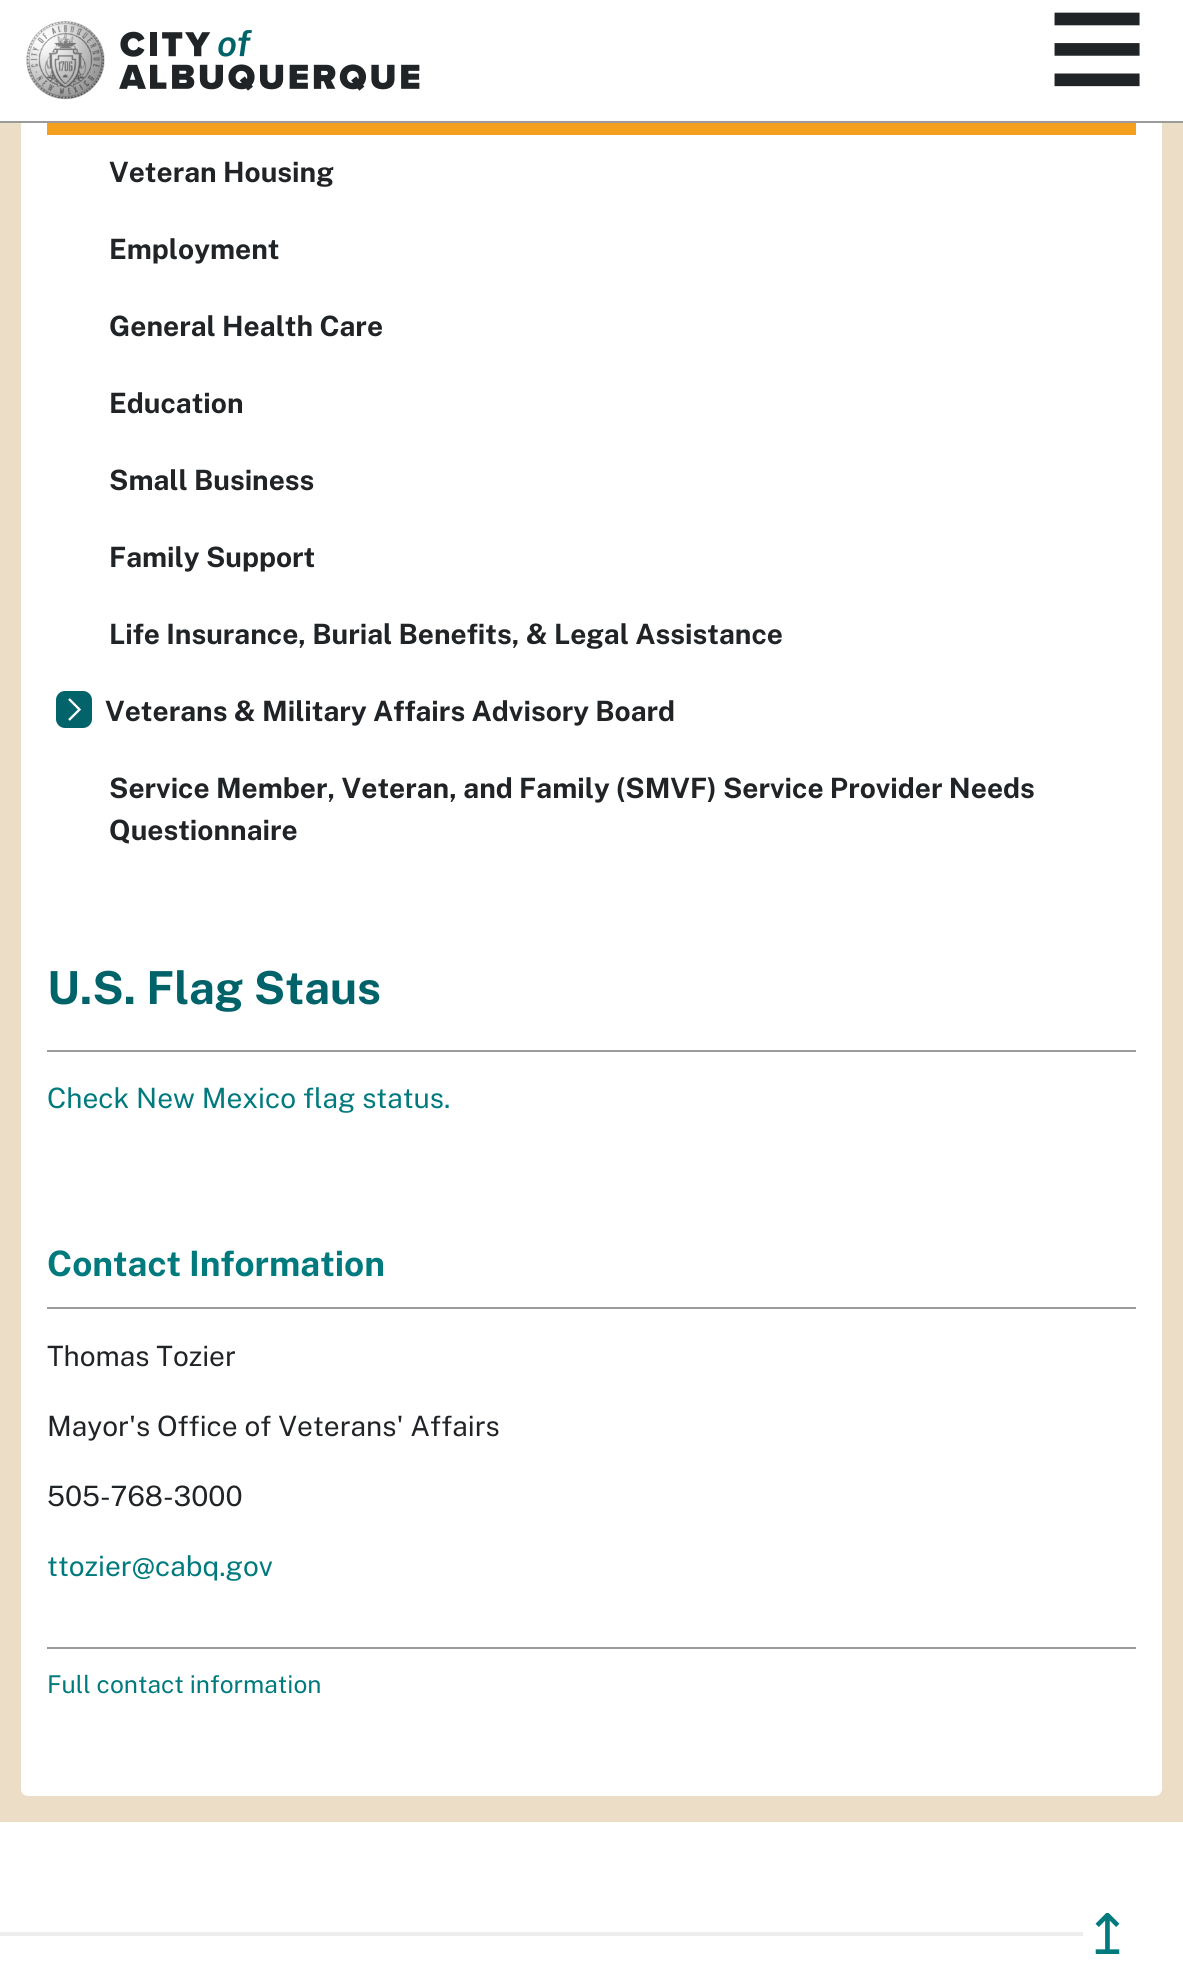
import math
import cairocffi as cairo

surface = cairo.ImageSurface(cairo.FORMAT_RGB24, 1183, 1976)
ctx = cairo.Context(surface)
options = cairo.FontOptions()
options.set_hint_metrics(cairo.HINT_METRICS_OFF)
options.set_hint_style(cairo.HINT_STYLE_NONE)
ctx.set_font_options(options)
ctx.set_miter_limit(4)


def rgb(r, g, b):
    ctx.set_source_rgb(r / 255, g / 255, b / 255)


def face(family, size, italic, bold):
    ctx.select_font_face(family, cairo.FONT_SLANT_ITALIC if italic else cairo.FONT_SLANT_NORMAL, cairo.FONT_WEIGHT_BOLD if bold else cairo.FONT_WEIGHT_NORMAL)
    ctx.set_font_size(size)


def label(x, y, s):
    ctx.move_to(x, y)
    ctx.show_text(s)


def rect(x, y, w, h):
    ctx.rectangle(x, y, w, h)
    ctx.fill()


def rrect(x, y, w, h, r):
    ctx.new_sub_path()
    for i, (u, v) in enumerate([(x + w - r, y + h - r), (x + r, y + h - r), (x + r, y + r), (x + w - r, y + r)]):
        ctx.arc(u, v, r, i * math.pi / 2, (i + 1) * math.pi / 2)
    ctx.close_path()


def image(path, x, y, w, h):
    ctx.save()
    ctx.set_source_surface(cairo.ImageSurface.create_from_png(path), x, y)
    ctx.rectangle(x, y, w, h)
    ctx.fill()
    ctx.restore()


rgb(255, 255, 255)
ctx.paint()
rgb(235, 221, 198)
rect(0, 123, 1183, 1699)
rgb(255, 255, 255)
rrect(21, -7, 1141, 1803, 7)
ctx.fill()
face('Liberation Sans', 175, 0, 0)
rgb(33, 36, 39)
label(1046, 107, '≡')
rgb(155, 155, 155)
rect(0, 121, 1183, 2)
image('image0.png', 26, 21, 79, 79)
image('image1.png', 119, 30, 301, 61)
rgb(245, 159, 31)
rect(47, 123, 1089, 12)
face('Public Sans', 28, 0, 1)
rgb(33, 36, 39)
label(109, 182, 'Veteran Housing')
label(109, 259, 'Employment')
label(109, 336, 'General Health Care')
label(109, 413, 'Education')
label(109, 490, 'Small Business')
label(109, 567, 'Family Support')
label(109, 644, 'Life Insurance, Burial Benefits, & Legal Assistance')
rgb(2, 99, 106)
rrect(56, 691, 36, 37, 9)
ctx.fill()
ctx.new_path()
ctx.move_to(69, 699)
ctx.line_to(79.5, 709.5)
ctx.line_to(69, 720)
rgb(255, 255, 255)
ctx.set_line_width(2.3)
ctx.stroke()
rgb(33, 36, 39)
label(105, 721, 'Veterans & Military Affairs Advisory Board')
label(109, 798, 'Service Member, Veteran, and Family (SMVF) Service Provider Needs')
label(109, 840, 'Questionnaire')
rgb(155, 155, 155)
rect(47, 1050, 1089, 2)
face('Public Sans', 45.5, 0, 1)
rgb(1, 99, 106)
label(47, 1004, 'U.S. Flag Staus')
face('Public Sans', 28, 0, 0)
rgb(1, 122, 125)
label(47, 1108, 'Check New Mexico flag status.')
rgb(155, 155, 155)
rect(47, 1307, 1089, 2)
face('Public Sans', 35, 0, 1)
rgb(1, 122, 125)
label(47, 1276, 'Contact Information')
face('Public Sans', 28, 0, 0)
rgb(33, 36, 39)
label(47, 1366, 'Thomas Tozier')
label(47, 1436, 'Mayor\'s Office of Veterans\' Affairs')
label(47, 1506, '505-768-3000')
rgb(1, 122, 125)
label(47, 1576, 'ttozier@cabq.gov')
rgb(155, 155, 155)
rect(47, 1647, 1089, 2)
face('Public Sans', 24.5, 0, 0)
rgb(1, 122, 125)
label(47, 1693, 'Full contact information')
rgb(236, 237, 236)
rect(0, 1932, 1083, 4)
face('DejaVu Sans', 56, 0, 0)
rgb(1, 122, 125)
label(1084, 1954, '↥')
surface.write_to_png('render.png')
